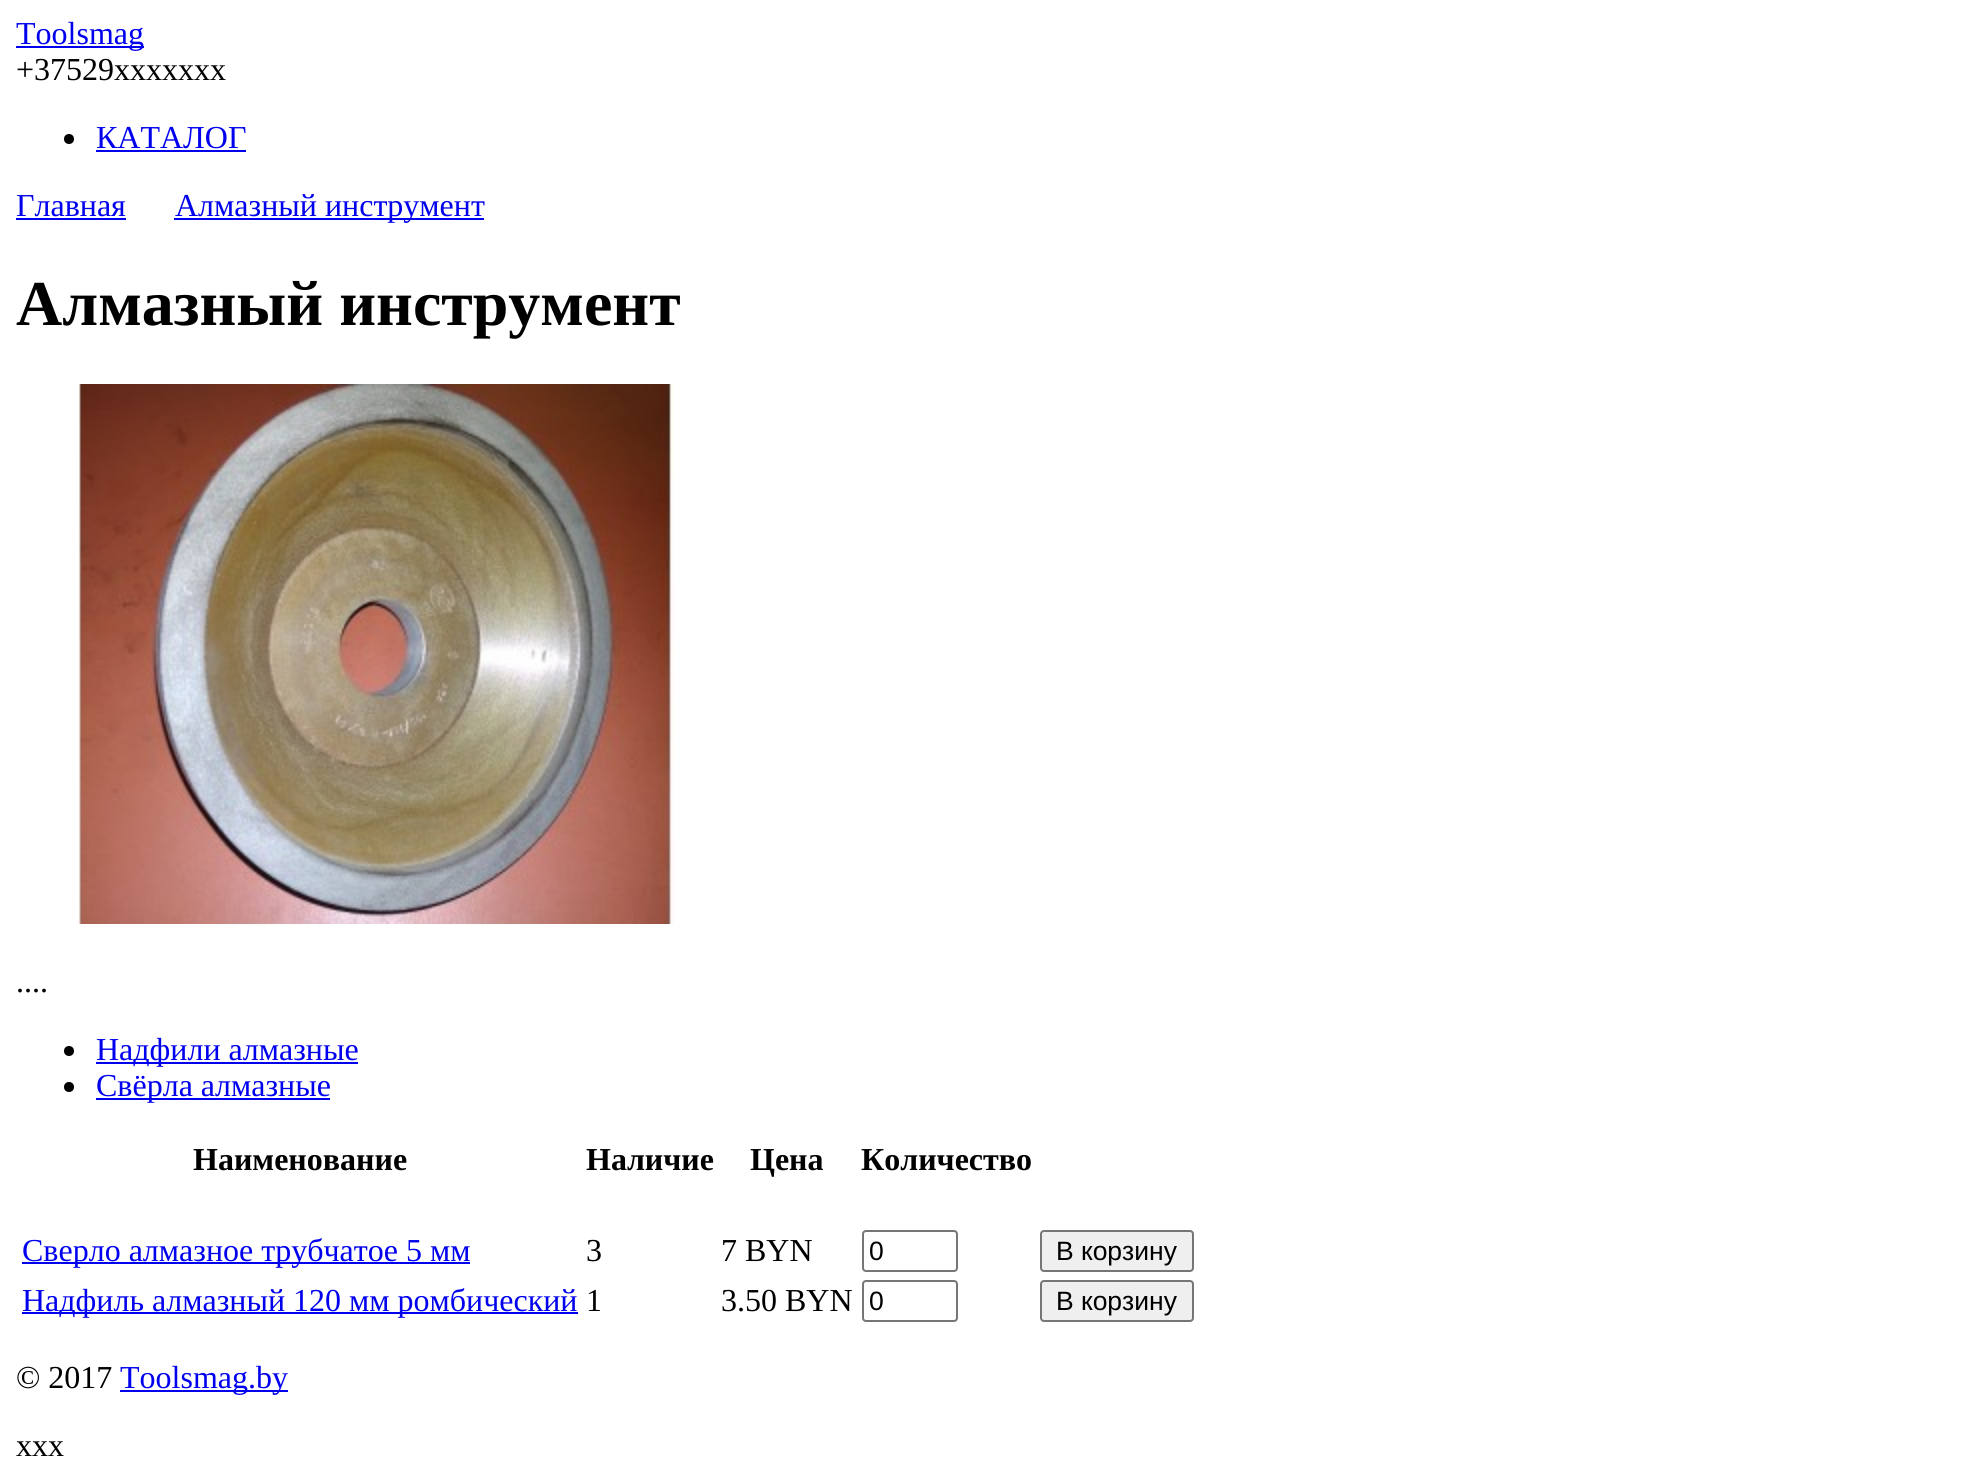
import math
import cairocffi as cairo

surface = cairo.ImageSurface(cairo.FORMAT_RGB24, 1966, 1464)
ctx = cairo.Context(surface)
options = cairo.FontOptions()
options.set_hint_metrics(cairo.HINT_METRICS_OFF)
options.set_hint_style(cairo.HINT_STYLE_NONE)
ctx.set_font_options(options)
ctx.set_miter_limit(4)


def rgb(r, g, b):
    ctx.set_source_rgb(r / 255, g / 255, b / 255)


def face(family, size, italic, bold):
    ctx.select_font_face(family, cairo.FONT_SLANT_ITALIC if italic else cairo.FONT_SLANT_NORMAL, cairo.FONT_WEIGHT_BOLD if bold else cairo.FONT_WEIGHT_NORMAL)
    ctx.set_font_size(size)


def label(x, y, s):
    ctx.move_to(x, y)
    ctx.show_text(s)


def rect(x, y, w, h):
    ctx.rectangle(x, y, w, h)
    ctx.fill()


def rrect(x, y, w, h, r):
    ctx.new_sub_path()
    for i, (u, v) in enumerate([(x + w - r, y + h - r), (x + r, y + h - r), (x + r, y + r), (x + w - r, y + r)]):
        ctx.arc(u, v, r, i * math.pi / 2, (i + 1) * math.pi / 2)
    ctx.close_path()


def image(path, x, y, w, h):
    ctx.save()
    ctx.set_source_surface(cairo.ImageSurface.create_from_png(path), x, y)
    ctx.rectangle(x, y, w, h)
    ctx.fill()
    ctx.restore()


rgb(255, 255, 255)
ctx.paint()
rgb(0, 0, 238)
rect(16, 46, 128, 2)
face('Liberation Serif', 32, 0, 0)
label(16, 44, 'Toolsmag')
rgb(0, 0, 0)
label(16, 80, '+37529ххххххх')
ctx.new_path()
ctx.arc(69, 139, 5, 0, 2 * math.pi)
ctx.fill()
rgb(0, 0, 238)
label(96, 148, 'КАТАЛОГ')
rect(96, 150, 150, 2)
label(16, 216, 'Главная')
rect(16, 218, 110, 2)
rect(174, 218, 310, 2)
label(175, 216, 'Алмазный инструмент')
face('Liberation Serif', 64, 0, 1)
rgb(0, 0, 0)
label(16, 325, 'Алмазный инструмент')
image('image0.png', 78, 384, 596, 540)
face('Liberation Serif', 32, 0, 0)
label(16, 992, '....')
ctx.new_path()
ctx.arc(69, 1051, 5, 0, 2 * math.pi)
ctx.fill()
rgb(0, 0, 238)
rect(96, 1062, 262, 2)
label(96, 1060, 'Надфили алмазные')
rgb(0, 0, 0)
ctx.new_path()
ctx.arc(69, 1087, 5, 0, 2 * math.pi)
ctx.fill()
rgb(0, 0, 238)
rect(96, 1098, 234, 2)
label(96, 1096, 'Свёрла алмазные')
face('Liberation Serif', 32, 0, 1)
rgb(0, 0, 0)
label(193, 1170, 'Наименование')
label(586, 1170, 'Наличие')
label(750, 1170, 'Цена')
label(861, 1170, 'Количество')
rgb(0, 0, 238)
rect(22, 1262, 448, 2)
face('Liberation Serif', 32, 0, 0)
label(22, 1261, 'Сверло алмазное трубчатое 5 мм')
rgb(0, 0, 0)
label(586, 1261, '3')
label(721, 1261, '7 BYN')
rrect(863, 1231, 94, 40, 3)
rgb(118, 118, 118)
ctx.stroke()
face('Liberation Sans', 26.5, 0, 0)
rgb(0, 0, 0)
label(869, 1260, '0')
rgb(239, 239, 239)
rrect(1041, 1231, 152, 40, 3)
ctx.fill_preserve()
rgb(118, 118, 118)
ctx.stroke()
rgb(0, 0, 0)
label(1056, 1260, 'В корзину')
rgb(0, 0, 238)
rect(22, 1312, 556, 2)
face('Liberation Serif', 32, 0, 0)
label(22, 1311, 'Надфиль алмазный 120 мм ромбический')
rgb(0, 0, 0)
label(586, 1311, '1')
label(721, 1311, '3.50 BYN')
rrect(863, 1281, 94, 40, 3)
rgb(118, 118, 118)
ctx.stroke()
face('Liberation Sans', 26.5, 0, 0)
rgb(0, 0, 0)
label(869, 1310, '0')
rgb(239, 239, 239)
rrect(1041, 1281, 152, 40, 3)
ctx.fill_preserve()
rgb(118, 118, 118)
ctx.stroke()
rgb(0, 0, 0)
label(1056, 1310, 'В корзину')
face('Liberation Serif', 32, 0, 0)
label(16, 1388, '© 2017')
rgb(0, 0, 238)
rect(120, 1390, 168, 2)
label(120, 1388, 'Toolsmag.by')
rgb(0, 0, 0)
label(16, 1456, 'ххх')
surface.write_to_png('render.png')
